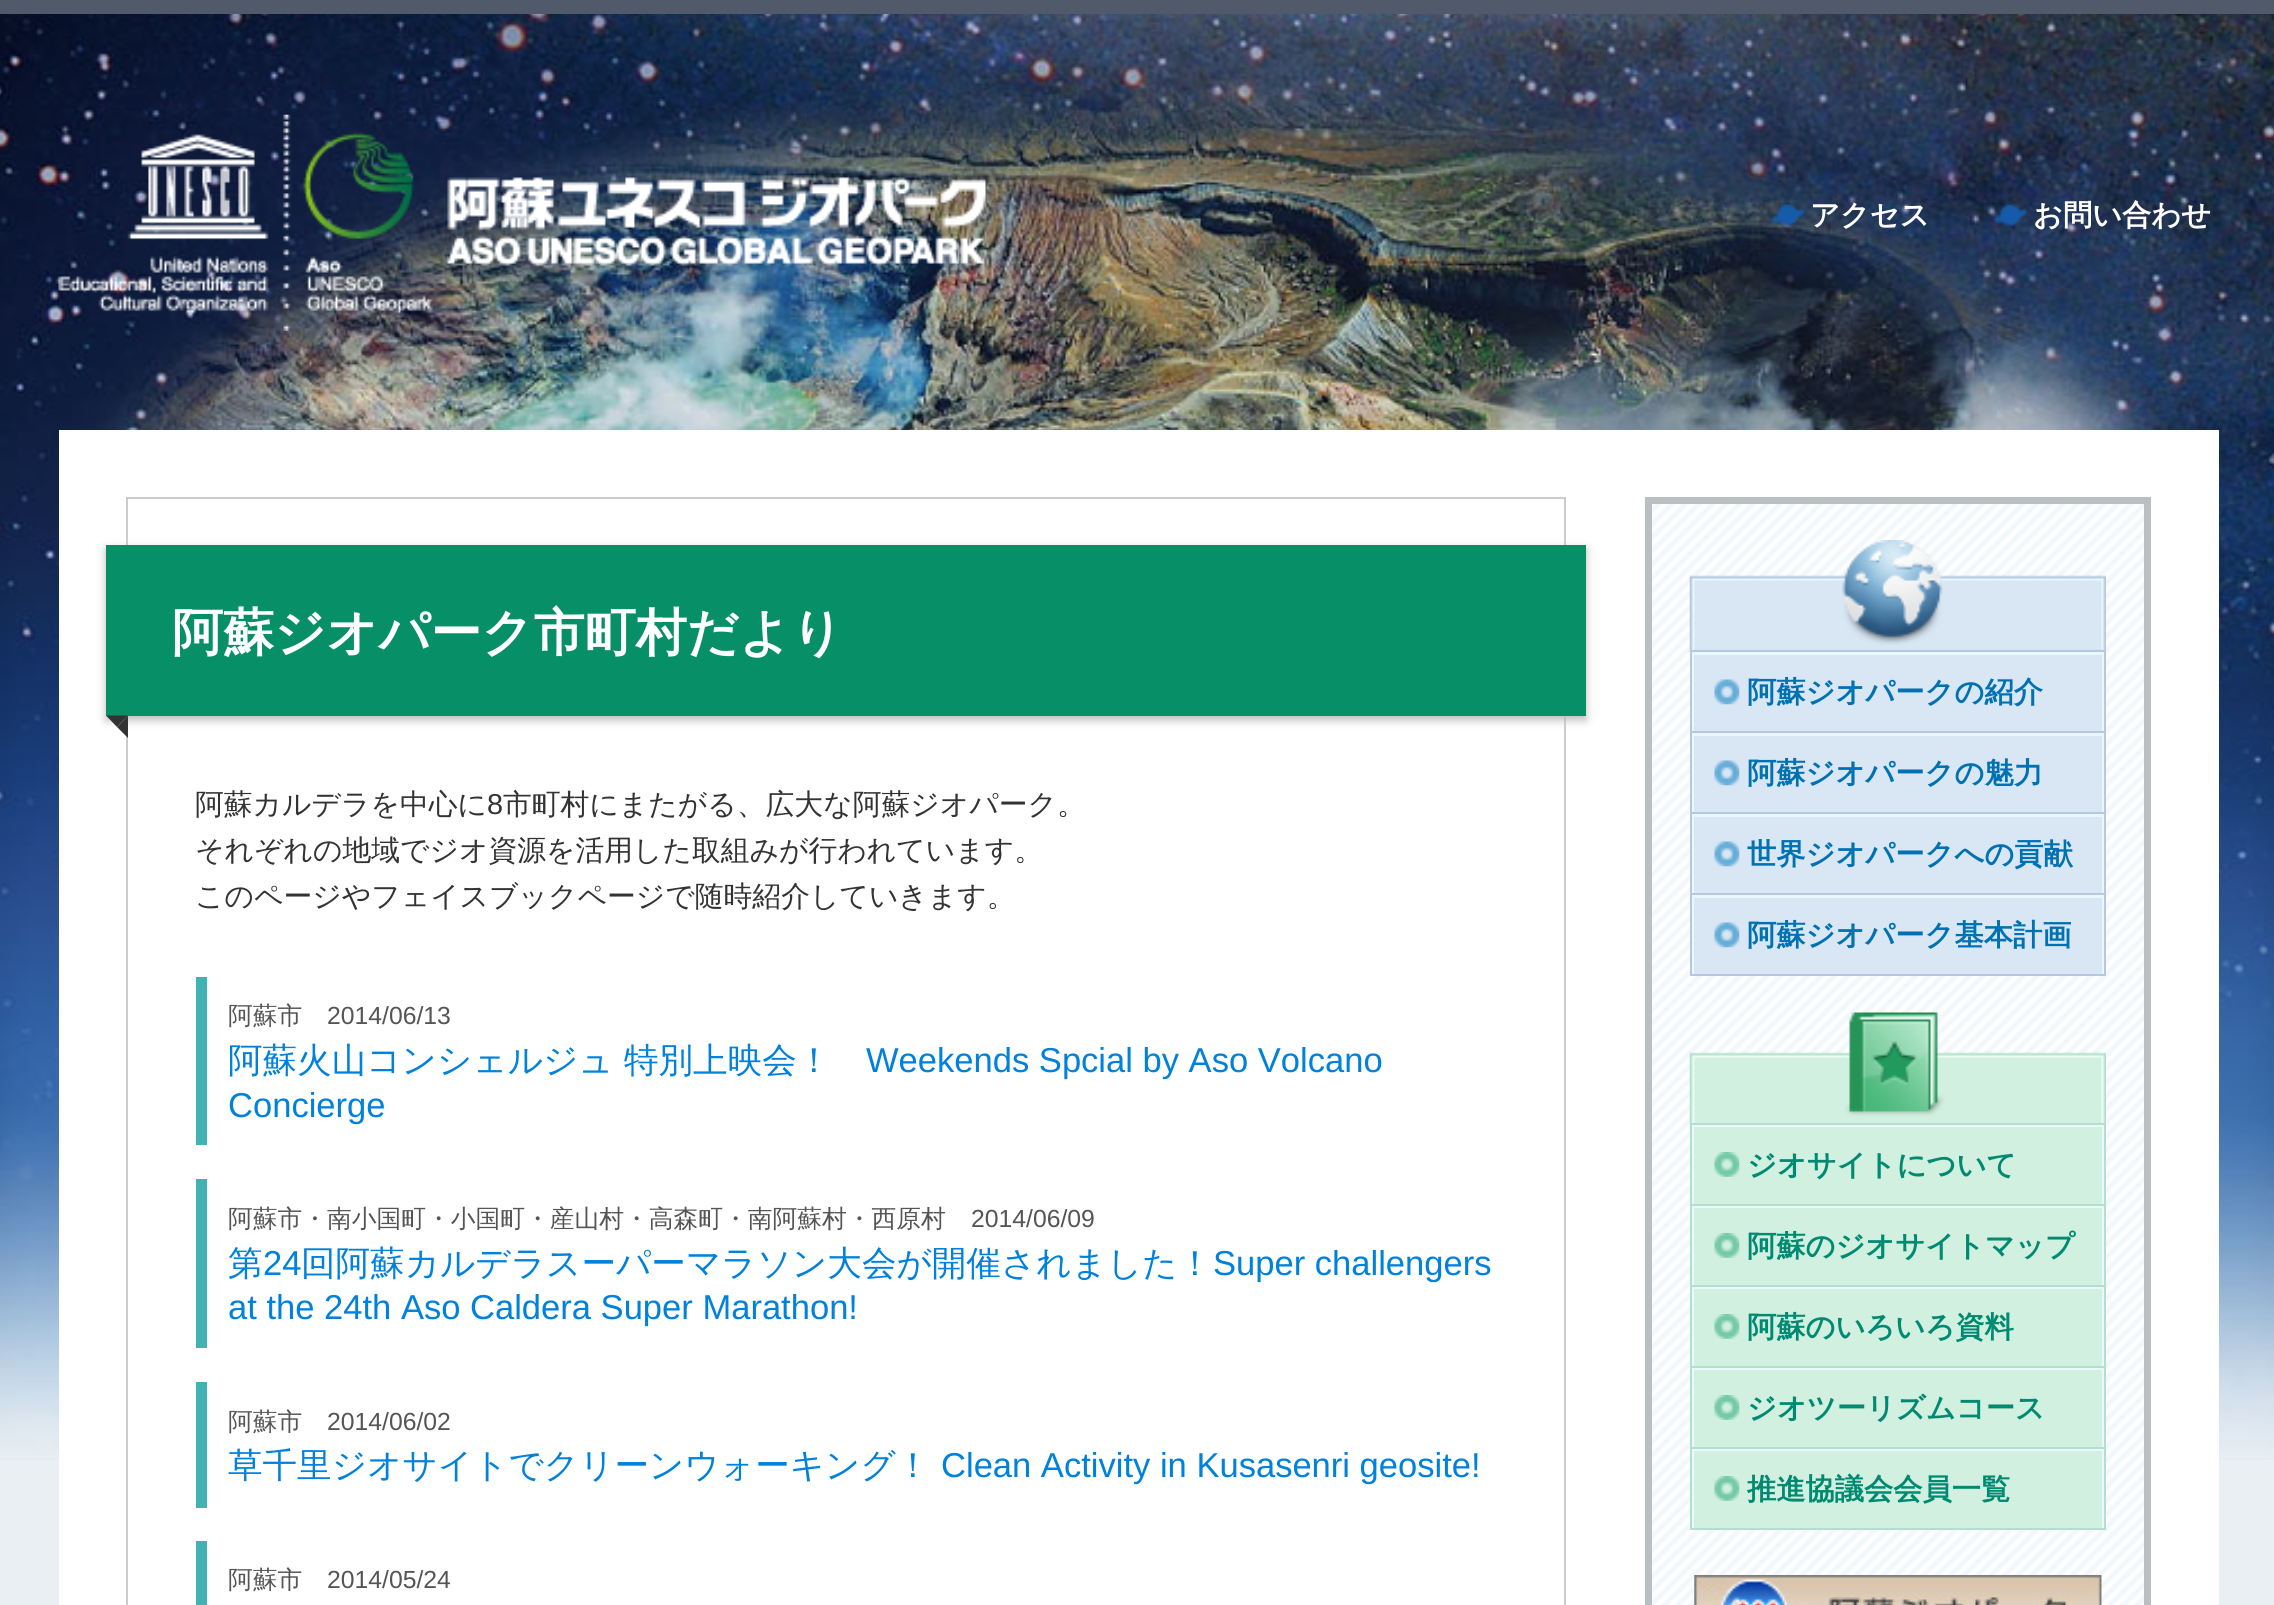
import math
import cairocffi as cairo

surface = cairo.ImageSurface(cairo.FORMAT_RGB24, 2274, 1605)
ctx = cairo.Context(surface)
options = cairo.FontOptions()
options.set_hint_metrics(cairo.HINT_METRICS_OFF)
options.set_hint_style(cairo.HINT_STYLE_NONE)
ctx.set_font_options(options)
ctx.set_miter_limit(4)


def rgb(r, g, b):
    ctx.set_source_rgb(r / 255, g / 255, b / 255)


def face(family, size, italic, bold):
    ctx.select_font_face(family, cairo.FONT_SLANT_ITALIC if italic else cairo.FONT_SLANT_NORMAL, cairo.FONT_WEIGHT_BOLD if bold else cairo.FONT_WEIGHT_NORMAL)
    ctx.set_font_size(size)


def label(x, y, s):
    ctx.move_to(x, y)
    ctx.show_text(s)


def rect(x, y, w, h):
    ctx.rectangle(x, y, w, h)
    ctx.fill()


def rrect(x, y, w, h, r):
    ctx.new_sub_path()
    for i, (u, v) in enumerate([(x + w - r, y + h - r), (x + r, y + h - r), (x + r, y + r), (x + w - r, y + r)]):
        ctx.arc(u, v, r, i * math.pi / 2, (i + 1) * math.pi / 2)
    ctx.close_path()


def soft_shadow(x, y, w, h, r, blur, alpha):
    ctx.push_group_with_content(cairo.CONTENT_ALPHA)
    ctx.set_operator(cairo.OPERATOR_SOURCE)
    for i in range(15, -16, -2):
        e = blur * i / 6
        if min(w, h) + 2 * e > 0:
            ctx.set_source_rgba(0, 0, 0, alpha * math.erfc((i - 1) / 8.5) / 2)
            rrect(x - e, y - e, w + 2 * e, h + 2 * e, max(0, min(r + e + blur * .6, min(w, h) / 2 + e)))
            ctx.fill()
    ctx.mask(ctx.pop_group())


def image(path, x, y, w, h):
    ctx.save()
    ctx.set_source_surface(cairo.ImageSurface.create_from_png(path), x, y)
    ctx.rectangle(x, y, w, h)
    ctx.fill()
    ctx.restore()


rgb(234, 239, 244)
ctx.paint()
image('image0.png', 0, 1458, 2274, 2)
image('image1.png', 0, 14, 2274, 1444)
rgb(80, 90, 106)
rect(0, 0, 2274, 14)
image('image2.png', 58, 114, 928, 217)
image('image3.png', 1770, 203, 35, 24)
face('WenQuanYi Zen Hei', 29.25, 0, 1)
rgb(255, 255, 255)
label(1810, 225, 'アクセス')
image('image4.png', 1993, 202, 35, 25)
label(2033, 225, 'お問い合わせ')
rect(59, 430, 2160, 1175)
ctx.rectangle(127, 498, 1438, 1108)
rgb(204, 204, 204)
ctx.stroke()
rgb(187, 187, 187)
soft_shadow(106, 549, 1480, 171, 0, 4.5, 1)
rgb(7, 144, 104)
rect(106, 545, 1480, 171)
face('WenQuanYi Zen Hei', 51, 0, 1)
rgb(255, 255, 255)
label(172, 650, '阿蘇ジオパーク市町村だより')
rgb(51, 51, 51)
ctx.new_path()
ctx.move_to(106, 715.5)
ctx.line_to(128, 715.5)
ctx.line_to(117, 727)
ctx.close_path()
ctx.fill()
ctx.new_path()
ctx.move_to(128, 715.5)
ctx.line_to(128, 738)
ctx.line_to(117, 727)
ctx.close_path()
ctx.fill()
face('WenQuanYi Zen Hei Medium', 28.8, 0, 0)
label(195, 814, '阿蘇カルデラを中心に')
face('Liberation Sans', 28.8, 0, 0)
label(487, 814, '8')
face('WenQuanYi Zen Hei Medium', 28.8, 0, 0)
label(503, 814, '市町村にまたがる、広大な阿蘇ジオパーク。')
label(195, 860, 'それぞれの地域でジオ資源を活用した取組みが行われています。')
label(195, 906, 'このページやフェイスブックページで随時紹介していきます。')
rgb(64, 178, 179)
rect(196, 977, 11, 168)
face('WenQuanYi Zen Hei Medium', 24.75, 0, 0)
rgb(85, 85, 85)
label(228, 1024, '阿蘇市')
face('Liberation Sans', 24.75, 0, 0)
label(327, 1024, '2014/06/13')
face('WenQuanYi Zen Hei Medium', 34.55, 0, 0)
rgb(0, 129, 220)
label(228, 1072, '阿蘇火山コンシェルジュ')
label(624, 1072, '特別上映会！')
face('Liberation Sans', 34.55, 0, 0)
label(866, 1072, 'Weekends Spcial by Aso Volcano')
label(228, 1117, 'Concierge')
rgb(64, 178, 179)
rect(196, 1179, 11, 169)
face('WenQuanYi Zen Hei Medium', 24.75, 0, 0)
rgb(85, 85, 85)
label(228, 1227, '阿蘇市・南小国町・小国町・産山村・高森町・南阿蘇村・西原村')
face('Liberation Sans', 24.75, 0, 0)
label(971, 1227, '2014/06/09')
face('WenQuanYi Zen Hei Medium', 34.55, 0, 0)
rgb(0, 129, 220)
label(228, 1275, '第')
face('Liberation Sans', 34.55, 0, 0)
label(263, 1275, '24')
face('WenQuanYi Zen Hei Medium', 34.55, 0, 0)
label(301, 1275, '回阿蘇カルデラスーパーマラソン大会が開催されました！')
face('Liberation Sans', 34.55, 0, 0)
label(1213, 1275, 'Super challengers')
label(228, 1319, 'at the 24th Aso Caldera Super Marathon!')
rgb(64, 178, 179)
rect(196, 1382, 11, 126)
face('WenQuanYi Zen Hei Medium', 24.75, 0, 0)
rgb(85, 85, 85)
label(228, 1430, '阿蘇市')
face('Liberation Sans', 24.75, 0, 0)
label(327, 1430, '2014/06/02')
face('WenQuanYi Zen Hei Medium', 34.55, 0, 0)
rgb(0, 129, 220)
label(228, 1477, '草千里ジオサイトでクリーンウォーキング！')
face('Liberation Sans', 34.55, 0, 0)
label(941, 1477, 'Clean Activity in Kusasenri geosite!')
rgb(64, 178, 179)
rect(196, 1541, 11, 64)
face('WenQuanYi Zen Hei Medium', 24.75, 0, 0)
rgb(85, 85, 85)
label(228, 1588, '阿蘇市')
face('Liberation Sans', 24.75, 0, 0)
label(327, 1588, '2014/05/24')
image('image5.png', 1652, 504, 492, 1101)
ctx.rectangle(1648.5, 500.5, 499, 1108)
rgb(186, 191, 194)
ctx.set_line_width(7)
ctx.stroke()
image('image6.png', 1689, 540, 417, 113)
rgb(180, 200, 223)
rect(1690, 974, 416, 2)
rgb(233, 247, 255)
rect(1692, 652, 412, 79)
rgb(180, 200, 223)
rect(1690, 650, 416, 2)
rect(2104, 650, 2, 81)
rect(1690, 650, 2, 81)
rgb(217, 231, 245)
rect(1694, 655, 408, 76)
image('image7.png', 1714, 679, 26, 26)
face('WenQuanYi Zen Hei', 29.25, 0, 1)
rgb(0, 113, 179)
label(1747, 702, '阿蘇ジオパークの紹介')
rgb(233, 247, 255)
rect(1692, 733, 412, 79)
rgb(180, 200, 223)
rect(1690, 731, 416, 2)
rect(2104, 731, 2, 81)
rect(1690, 731, 2, 81)
rgb(217, 231, 245)
rect(1694, 736, 408, 76)
image('image7.png', 1714, 760, 26, 26)
rgb(0, 113, 179)
label(1747, 783, '阿蘇ジオパークの魅力')
rgb(233, 247, 255)
rect(1692, 814, 412, 79)
rgb(180, 200, 223)
rect(1690, 812, 416, 2)
rect(2104, 812, 2, 81)
rect(1690, 812, 2, 81)
rgb(217, 231, 245)
rect(1694, 817, 408, 76)
image('image7.png', 1714, 841, 26, 26)
rgb(0, 113, 179)
label(1747, 864, '世界ジオパークへの貢献')
rgb(233, 247, 255)
rect(1692, 895, 412, 79)
rgb(180, 200, 223)
rect(1690, 893, 416, 2)
rect(2104, 893, 2, 81)
rect(1690, 893, 2, 81)
rgb(217, 231, 245)
rect(1694, 898, 408, 76)
image('image7.png', 1714, 922, 26, 26)
rgb(0, 113, 179)
label(1747, 945, '阿蘇ジオパーク基本計画')
image('image8.png', 1689, 1012, 417, 118)
rgb(180, 223, 204)
rect(1690, 1528, 416, 2)
rgb(233, 247, 255)
rect(1692, 1125, 412, 79)
rgb(180, 223, 204)
rect(1690, 1123, 416, 2)
rect(2104, 1123, 2, 81)
rect(1690, 1123, 2, 81)
rgb(209, 240, 224)
rect(1694, 1127, 408, 77)
image('image9.png', 1714, 1152, 26, 25)
rgb(0, 138, 114)
label(1747, 1175, 'ジオサイトについて')
rgb(233, 247, 255)
rect(1692, 1206, 412, 79)
rgb(180, 223, 204)
rect(1690, 1204, 416, 2)
rect(2104, 1204, 2, 81)
rect(1690, 1204, 2, 81)
rgb(209, 240, 224)
rect(1694, 1208, 408, 77)
image('image10.png', 1714, 1233, 26, 25)
rgb(0, 138, 114)
label(1747, 1256, '阿蘇のジオサイトマップ')
rgb(233, 247, 255)
rect(1692, 1287, 412, 79)
rgb(180, 223, 204)
rect(1690, 1285, 416, 2)
rect(2104, 1285, 2, 81)
rect(1690, 1285, 2, 81)
rgb(209, 240, 224)
rect(1694, 1289, 408, 77)
image('image10.png', 1714, 1314, 26, 25)
rgb(0, 138, 114)
label(1747, 1337, '阿蘇のいろいろ資料')
rgb(233, 247, 255)
rect(1692, 1368, 412, 79)
rgb(180, 223, 204)
rect(1690, 1366, 416, 2)
rect(2104, 1366, 2, 81)
rect(1690, 1366, 2, 81)
rgb(209, 240, 224)
rect(1694, 1370, 408, 77)
image('image10.png', 1714, 1395, 26, 25)
rgb(0, 138, 114)
label(1747, 1418, 'ジオツーリズムコース')
rgb(233, 247, 255)
rect(1692, 1449, 412, 79)
rgb(180, 223, 204)
rect(1690, 1447, 416, 2)
rect(2104, 1447, 2, 81)
rect(1690, 1447, 2, 81)
rgb(209, 240, 224)
rect(1694, 1451, 408, 77)
image('image10.png', 1714, 1476, 26, 25)
rgb(0, 138, 114)
label(1747, 1499, '推進協議会会員一覧')
image('image11.png', 1694, 1575, 408, 30)
surface.write_to_png('render.png')
